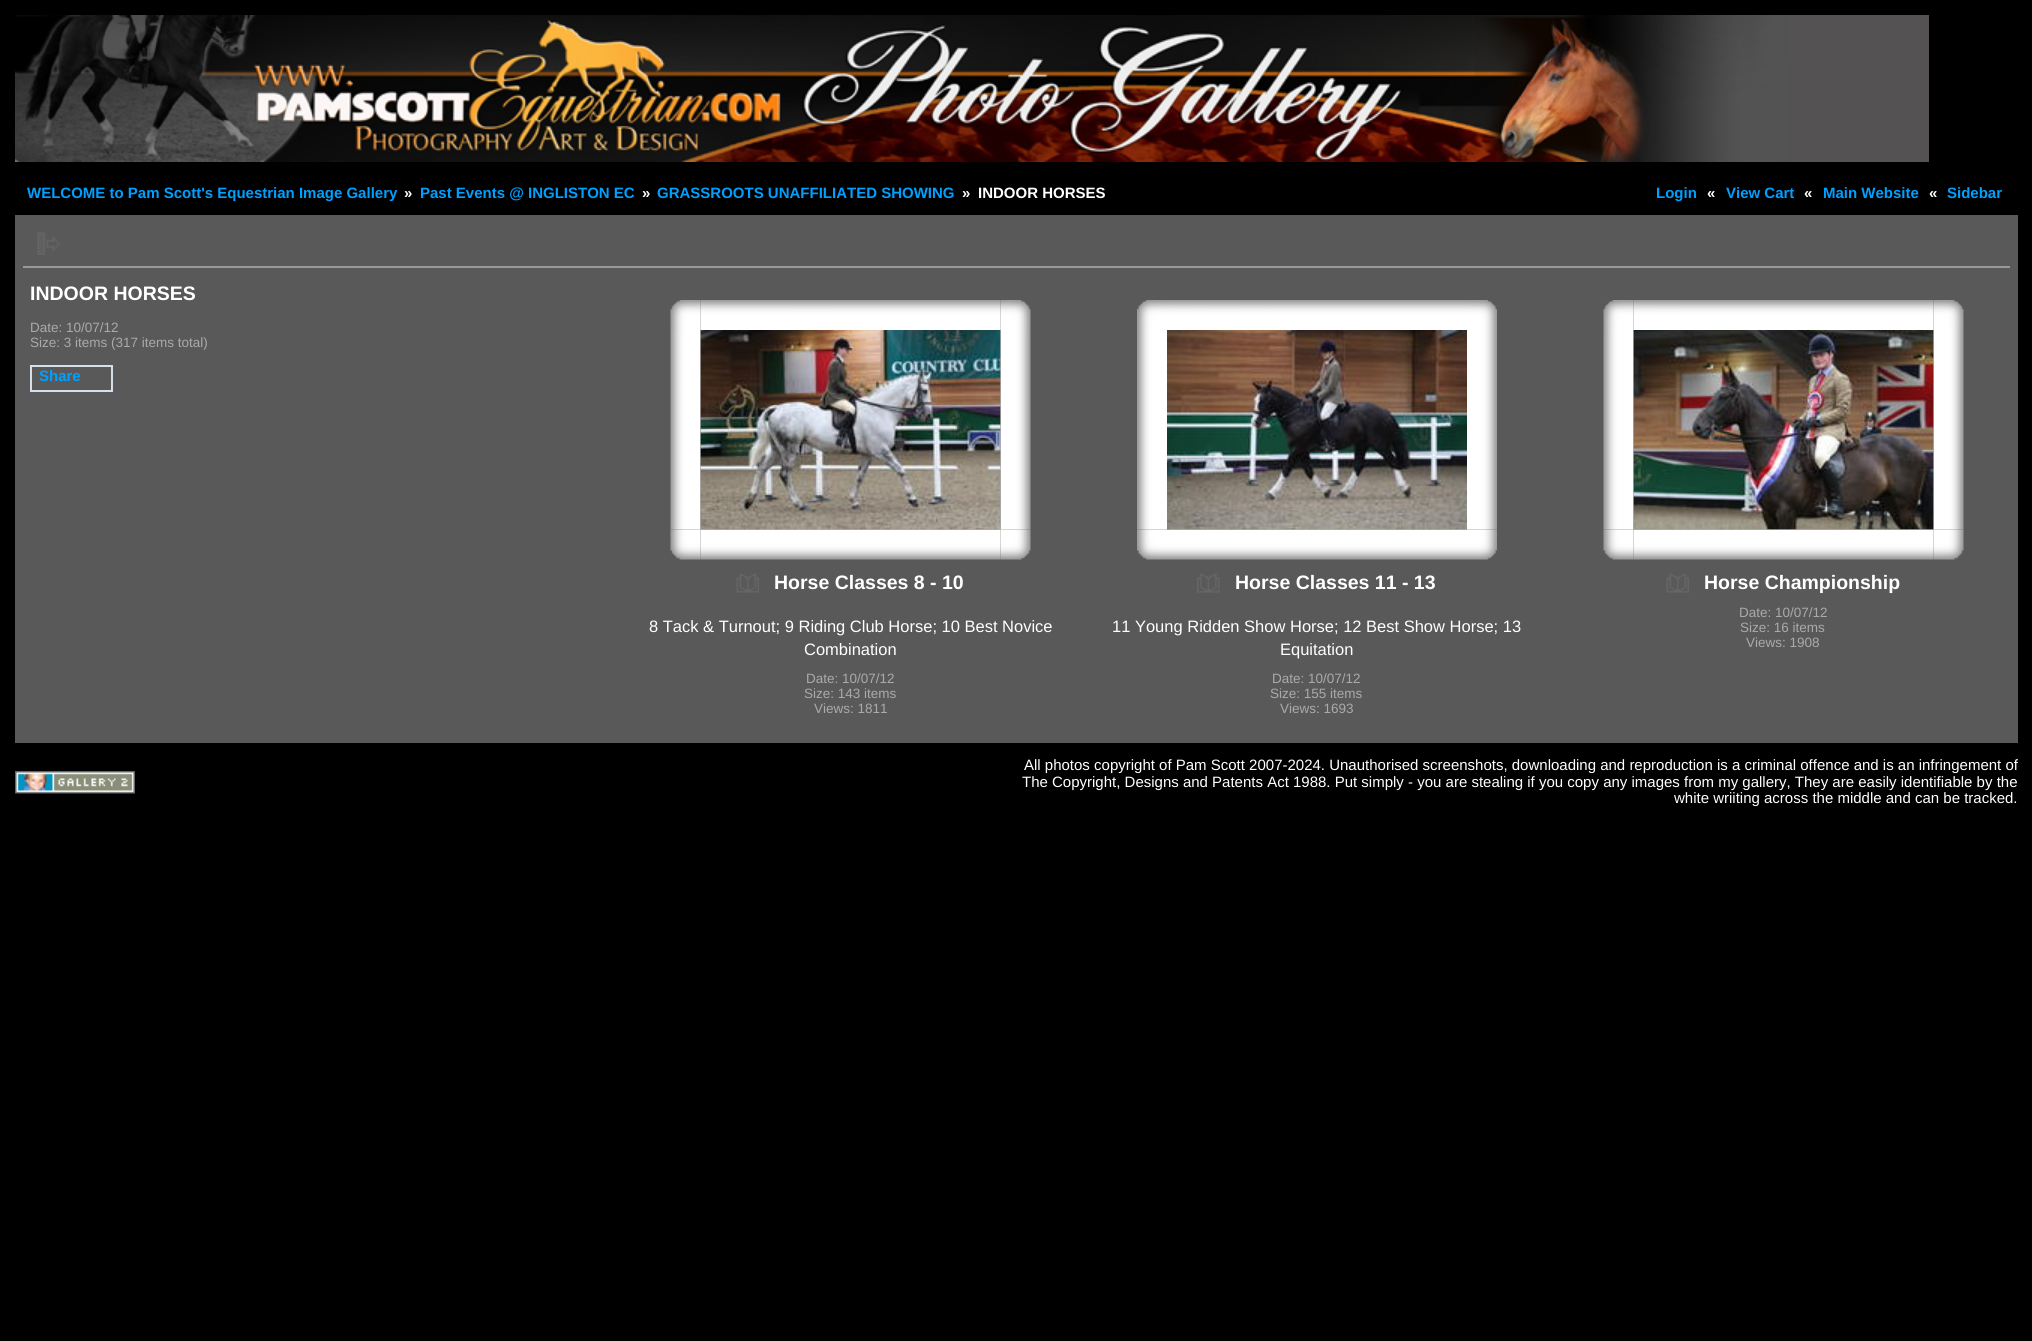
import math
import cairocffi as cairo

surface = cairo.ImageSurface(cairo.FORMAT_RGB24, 2032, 1341)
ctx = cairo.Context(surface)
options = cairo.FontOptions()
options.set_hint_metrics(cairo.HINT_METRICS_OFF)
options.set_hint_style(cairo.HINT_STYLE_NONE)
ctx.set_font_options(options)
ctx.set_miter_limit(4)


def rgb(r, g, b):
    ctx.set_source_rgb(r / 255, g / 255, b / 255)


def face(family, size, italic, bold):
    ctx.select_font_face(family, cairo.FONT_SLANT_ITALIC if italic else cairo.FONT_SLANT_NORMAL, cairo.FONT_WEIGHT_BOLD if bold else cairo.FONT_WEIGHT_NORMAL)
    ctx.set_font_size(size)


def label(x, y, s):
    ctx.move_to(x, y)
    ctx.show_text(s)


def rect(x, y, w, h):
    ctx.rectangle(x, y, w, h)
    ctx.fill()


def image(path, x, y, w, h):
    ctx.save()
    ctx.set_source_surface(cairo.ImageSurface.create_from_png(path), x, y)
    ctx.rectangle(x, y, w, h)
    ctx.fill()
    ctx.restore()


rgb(0, 0, 0)
ctx.paint()
image('image0.png', 15, 15, 1914, 147)
face('Liberation Sans', 15, 0, 1)
rgb(0, 160, 255)
label(27, 198, 'WELCOME to Pam Scott\'s Equestrian Image Gallery')
rgb(255, 255, 255)
label(404, 198, '»')
rgb(0, 160, 255)
label(420, 198, 'Past Events @ INGLISTON EC')
rgb(255, 255, 255)
label(642, 198, '»')
rgb(0, 160, 255)
label(657, 198, 'GRASSROOTS UNAFFILIATED SHOWING')
rgb(255, 255, 255)
label(962, 198, '»')
label(978, 198, 'INDOOR HORSES')
rgb(0, 160, 255)
label(1656, 198, 'Login')
rgb(255, 255, 255)
label(1707, 198, '«')
rgb(0, 160, 255)
label(1726, 198, 'View Cart')
rgb(255, 255, 255)
label(1804, 198, '«')
rgb(0, 160, 255)
label(1823, 198, 'Main Website')
rgb(255, 255, 255)
label(1929, 198, '«')
rgb(0, 160, 255)
label(1947, 198, 'Sidebar')
rgb(89, 89, 89)
rect(15, 215, 2003, 528)
rgb(153, 153, 153)
rect(23, 266, 1987, 2)
image('image1.png', 37, 232, 23, 23)
face('Liberation Sans', 19.5, 0, 1)
rgb(255, 255, 255)
label(30, 300, 'INDOOR HORSES')
face('Liberation Sans', 13.5, 0, 0)
rgb(170, 170, 170)
label(30, 332, 'Date: 10/07/12')
label(30, 347, 'Size: 3 items (317 items total)')
ctx.rectangle(31, 366, 81, 25)
rgb(216, 223, 234)
ctx.stroke()
face('Liberation Sans', 15, 0, 1)
rgb(0, 160, 255)
label(39, 381, 'Share')
image('image2.png', 670, 300, 31, 30)
image('image3.png', 700, 300, 301, 30)
image('image4.png', 1000, 300, 31, 30)
image('image5.png', 670, 330, 31, 200)
image('image7.png', 1000, 330, 31, 200)
image('image8.png', 670, 529, 31, 31)
image('image9.png', 700, 529, 301, 31)
image('image10.png', 1000, 529, 31, 31)
image('image6.png', 700, 330, 301, 200)
image('image11.png', 736, 573, 23, 20)
face('Liberation Sans', 19.5, 0, 1)
rgb(255, 255, 255)
label(774, 589, 'Horse Classes 8 - 10')
face('Liberation Sans', 16.5, 0, 0)
label(649, 632, '8 Tack & Turnout; 9 Riding Club Horse; 10 Best Novice')
label(804, 655, 'Combination')
face('Liberation Sans', 13.5, 0, 0)
rgb(170, 170, 170)
label(806, 683, 'Date: 10/07/12')
label(804, 698, 'Size: 143 items')
label(814, 713, 'Views: 1811')
image('image12.png', 1137, 300, 30, 30)
image('image13.png', 1167, 300, 300, 30)
image('image14.png', 1467, 300, 30, 30)
image('image15.png', 1137, 330, 30, 200)
image('image19.png', 1167, 529, 300, 31)
image('image16.png', 1167, 330, 300, 200)
image('image17.png', 1467, 330, 30, 200)
image('image18.png', 1137, 529, 30, 31)
image('image20.png', 1467, 529, 30, 31)
image('image21.png', 1197, 573, 23, 20)
face('Liberation Sans', 19.5, 0, 1)
rgb(255, 255, 255)
label(1235, 589, 'Horse Classes 11 - 13')
face('Liberation Sans', 16.5, 0, 0)
label(1112, 632, '11 Young Ridden Show Horse; 12 Best Show Horse; 13')
label(1280, 655, 'Equitation')
face('Liberation Sans', 13.5, 0, 0)
rgb(170, 170, 170)
label(1272, 683, 'Date: 10/07/12')
label(1270, 698, 'Size: 155 items')
label(1280, 713, 'Views: 1693')
image('image22.png', 1603, 300, 31, 30)
image('image23.png', 1633, 300, 301, 30)
image('image24.png', 1933, 300, 31, 30)
image('image25.png', 1603, 330, 31, 200)
image('image7.png', 1933, 330, 31, 200)
image('image27.png', 1603, 529, 31, 31)
image('image9.png', 1633, 529, 301, 31)
image('image28.png', 1933, 529, 31, 31)
image('image26.png', 1633, 330, 301, 200)
image('image29.png', 1666, 573, 23, 20)
face('Liberation Sans', 19.5, 0, 1)
rgb(255, 255, 255)
label(1704, 589, 'Horse Championship')
face('Liberation Sans', 13.5, 0, 0)
rgb(170, 170, 170)
label(1739, 617, 'Date: 10/07/12')
label(1740, 632, 'Size: 16 items')
label(1746, 647, 'Views: 1908')
image('image30.png', 15, 771, 120, 23)
face('Liberation Sans', 15, 0, 0)
rgb(255, 255, 255)
label(1024, 770, 'All photos copyright of Pam Scott 2007-2024. Unauthorised screenshots, downloading and reproduction is a criminal offence and is an infringement of')
label(1022, 787, 'The Copyright, Designs and Patents Act 1988. Put simply - you are stealing if you copy any images from my gallery, They are easily identifiable by the')
label(1674, 803, 'white wriiting across the middle and can be tracked.')
surface.write_to_png('render.png')
